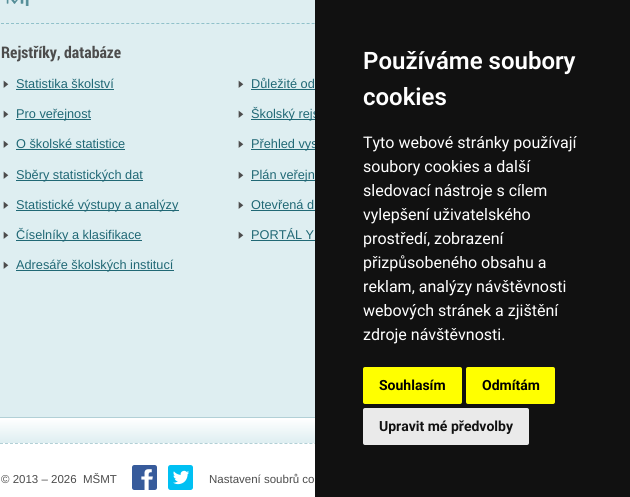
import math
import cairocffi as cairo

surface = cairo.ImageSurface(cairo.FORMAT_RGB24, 630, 497)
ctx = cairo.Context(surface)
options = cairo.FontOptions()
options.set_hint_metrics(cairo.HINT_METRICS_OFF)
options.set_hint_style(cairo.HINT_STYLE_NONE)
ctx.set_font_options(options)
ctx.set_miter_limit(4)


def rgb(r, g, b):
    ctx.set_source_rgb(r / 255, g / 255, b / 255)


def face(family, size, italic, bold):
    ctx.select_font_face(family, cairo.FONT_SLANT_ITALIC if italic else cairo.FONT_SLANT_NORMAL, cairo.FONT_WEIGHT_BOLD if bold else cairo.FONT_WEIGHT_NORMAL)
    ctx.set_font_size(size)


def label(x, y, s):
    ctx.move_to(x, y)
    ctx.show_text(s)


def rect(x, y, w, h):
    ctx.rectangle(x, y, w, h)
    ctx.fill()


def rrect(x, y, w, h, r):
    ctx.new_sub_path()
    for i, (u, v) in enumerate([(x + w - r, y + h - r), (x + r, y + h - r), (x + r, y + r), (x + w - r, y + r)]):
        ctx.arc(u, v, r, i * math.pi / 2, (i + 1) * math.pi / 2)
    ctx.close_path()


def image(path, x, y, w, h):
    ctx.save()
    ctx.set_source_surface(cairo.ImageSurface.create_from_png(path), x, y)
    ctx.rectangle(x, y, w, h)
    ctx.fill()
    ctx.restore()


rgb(255, 255, 255)
ctx.paint()
rgb(222, 238, 241)
rect(0, 0, 315, 417)
image('image0.png', 6, 0, 23, 6)
ctx.new_path()
ctx.move_to(1, 23.5)
ctx.line_to(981, 23.5)
rgb(144, 193, 202)
ctx.set_line_width(1)
ctx.set_dash([3, 2.01])
ctx.stroke()
face('Roboto Condensed', 16, 0, 1)
rgb(76, 76, 76)
label(1, 58, 'Rejstříky, databáze')
image('image1.png', 3, 80, 6, 8)
face('Liberation Sans', 12.75, 0, 0)
rgb(32, 104, 117)
label(16, 88, 'Statistika školství')
rect(16, 89, 98, 1)
image('image1.png', 3, 110, 6, 8)
rect(16, 119, 75, 1)
label(16, 118, 'Pro veřejnost')
image('image1.png', 3, 140, 6, 8)
label(16, 148, 'O školské statistice')
rect(16, 149, 109, 1)
image('image1.png', 3, 171, 6, 8)
rect(16, 180, 127, 1)
label(16, 179, 'Sběry statistických dat')
image('image1.png', 3, 201, 6, 8)
rect(16, 210, 163, 1)
label(16, 209, 'Statistické výstupy a analýzy')
image('image1.png', 3, 231, 6, 8)
rect(16, 240, 126, 1)
label(16, 239, 'Číselníky a klasifikace')
image('image1.png', 3, 261, 6, 8)
rect(16, 270, 158, 1)
label(16, 269, 'Adresáře školských institucí')
image('image1.png', 238, 80, 6, 8)
label(251, 88, 'Důležité od')
rect(251, 89, 64, 1)
image('image1.png', 238, 110, 6, 8)
rect(251, 119, 64, 1)
label(251, 118, 'Školský rejs')
image('image1.png', 238, 140, 6, 8)
rect(251, 149, 64, 1)
label(251, 148, 'Přehled vys')
image('image1.png', 238, 171, 6, 8)
rect(251, 180, 64, 1)
label(251, 179, 'Plán veřejn')
image('image1.png', 238, 201, 6, 8)
label(251, 209, 'Otevřená d')
rect(251, 210, 64, 1)
image('image1.png', 238, 231, 6, 8)
label(251, 239, 'PORTÁL Y')
rect(251, 240, 64, 1)
gradient = cairo.LinearGradient(491, 418, 491, 443)
gradient.add_color_stop_rgba(0.01, 1, 1, 1, 1)
gradient.add_color_stop_rgba(1, 0.871, 0.933, 0.945, 1)
ctx.set_source(gradient)
rect(0, 420, 315, 23)
rgb(178, 208, 214)
rect(0, 417, 315, 1)
ctx.new_path()
ctx.move_to(0, 443.5)
ctx.line_to(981, 443.5)
ctx.set_dash([3, 1.99])
ctx.stroke()
face('Liberation Sans', 11.5, 0, 0)
rgb(76, 76, 76)
label(1, 483, '© 2013 – 2026  MŠMT')
image('image2.png', 132, 465, 25, 25)
image('image3.png', 168, 465, 25, 25)
label(209, 483, 'Nastavení soubrů co')
rgb(17, 17, 17)
rect(315, 0, 315, 497)
face('Roboto SemiBold', 24, 0, 0)
rgb(255, 255, 255)
label(363, 69, 'Používáme soubory')
label(363, 105, 'cookies')
face('Roboto', 16, 0, 0)
label(363, 148, 'Tyto webové stránky používají')
label(363, 172, 'soubory cookies a další')
label(363, 196, 'sledovací nástroje s cílem')
label(363, 220, 'vylepšení uživatelského')
label(363, 244, 'prostředí, zobrazení')
label(363, 268, 'přizpůsobeného obsahu a')
label(363, 292, 'reklam, analýzy návštěvnosti')
label(363, 316, 'webových stránek a zjištění')
label(363, 340, 'zdroje návštěvnosti.')
rgb(255, 255, 0)
rrect(363, 367, 99, 37, 2)
ctx.fill()
face('Roboto', 14, 0, 1)
rgb(0, 0, 0)
label(379, 390, 'Souhlasím')
rgb(255, 255, 0)
rrect(466, 367, 89, 37, 2)
ctx.fill()
rgb(0, 0, 0)
label(482, 390, 'Odmítám')
rgb(234, 234, 234)
rrect(363, 408, 166, 37, 2)
ctx.fill()
rgb(17, 17, 17)
label(379, 431, 'Upravit mé předvolby')
surface.write_to_png('render.png')
